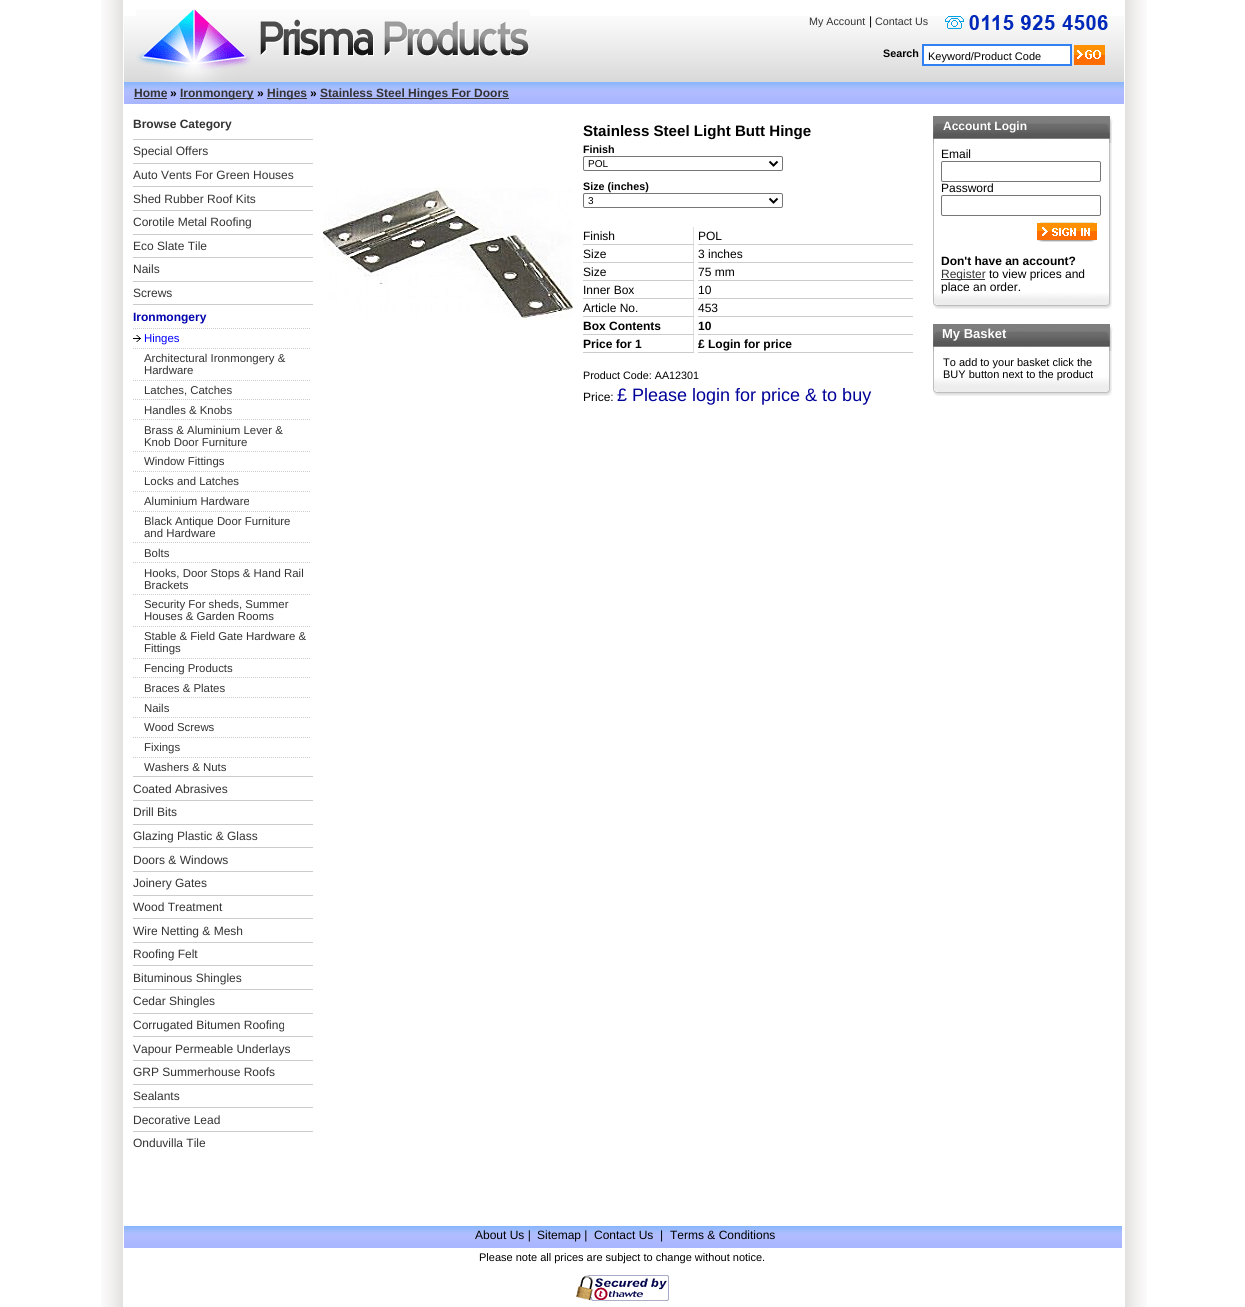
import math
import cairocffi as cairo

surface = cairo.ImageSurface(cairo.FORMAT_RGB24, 1245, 1307)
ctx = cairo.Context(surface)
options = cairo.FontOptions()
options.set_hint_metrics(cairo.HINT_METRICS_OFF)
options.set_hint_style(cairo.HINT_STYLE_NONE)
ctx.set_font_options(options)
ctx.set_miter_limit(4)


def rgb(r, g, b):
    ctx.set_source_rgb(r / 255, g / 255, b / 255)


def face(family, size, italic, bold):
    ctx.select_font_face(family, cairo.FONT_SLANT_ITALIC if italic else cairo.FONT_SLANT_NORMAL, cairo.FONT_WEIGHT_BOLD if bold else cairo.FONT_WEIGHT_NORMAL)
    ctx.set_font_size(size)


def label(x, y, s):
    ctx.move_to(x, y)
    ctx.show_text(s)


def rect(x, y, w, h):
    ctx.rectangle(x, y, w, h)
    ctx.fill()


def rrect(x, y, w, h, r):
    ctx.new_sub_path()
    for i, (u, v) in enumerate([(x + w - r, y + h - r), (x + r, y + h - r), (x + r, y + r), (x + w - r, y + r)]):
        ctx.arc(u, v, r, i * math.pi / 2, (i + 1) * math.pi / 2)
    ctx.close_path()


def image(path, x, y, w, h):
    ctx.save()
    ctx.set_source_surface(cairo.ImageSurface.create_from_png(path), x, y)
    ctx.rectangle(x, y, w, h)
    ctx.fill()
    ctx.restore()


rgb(255, 255, 255)
ctx.paint()
image('image0.png', 101, 0, 1046, 1307)
image('image1.png', 124, 16, 1000, 66)
image('image2.png', 136, 9, 394, 73)
face('Liberation Sans', 10.75, 0, 0)
rgb(51, 51, 51)
label(809, 25, 'My Account')
face('Liberation Sans', 12, 0, 0)
rgb(0, 0, 0)
label(869, 25, '|')
face('Liberation Sans', 10.75, 0, 0)
rgb(51, 51, 51)
label(875, 25, 'Contact Us')
image('image3.png', 945, 15, 163, 15)
face('Liberation Sans', 10.75, 0, 1)
rgb(0, 0, 0)
label(883, 57, 'Search')
rgb(255, 255, 255)
ctx.rectangle(923, 45, 148, 20)
ctx.fill_preserve()
rgb(49, 129, 242)
ctx.stroke()
face('Liberation Sans', 11, 0, 0)
rgb(0, 0, 0)
label(928, 60, 'Keyword/Product Code')
image('image4.png', 1074, 45, 31, 20)
image('image5.png', 124, 82, 1000, 22)
face('Liberation Sans', 12, 0, 1)
rgb(51, 51, 51)
label(134, 97, 'Home')
rect(134, 98, 33, 1)
rgb(0, 0, 0)
label(170, 97, '»')
rgb(51, 51, 51)
rect(180, 98, 74, 1)
label(180, 97, 'Ironmongery')
rgb(0, 0, 0)
label(257, 97, '»')
rgb(51, 51, 51)
rect(267, 98, 40, 1)
label(267, 97, 'Hinges')
rgb(0, 0, 0)
label(310, 97, '»')
rgb(51, 51, 51)
rect(320, 98, 189, 1)
label(320, 97, 'Stainless Steel Hinges For Doors')
label(133, 128, 'Browse Category')
rgb(204, 204, 204)
rect(133, 139, 180, 1)
face('Liberation Sans', 12, 0, 0)
rgb(51, 51, 51)
label(133, 155, 'Special Offers')
rgb(204, 204, 204)
rect(133, 163, 180, 1)
rgb(51, 51, 51)
label(133, 179, 'Auto Vents For Green Houses')
rgb(204, 204, 204)
rect(133, 186, 180, 1)
rgb(51, 51, 51)
label(133, 203, 'Shed Rubber Roof Kits')
rgb(204, 204, 204)
rect(133, 210, 180, 1)
rgb(51, 51, 51)
label(133, 226, 'Corotile Metal Roofing')
rgb(204, 204, 204)
rect(133, 234, 180, 1)
rgb(51, 51, 51)
label(133, 250, 'Eco Slate Tile')
rgb(204, 204, 204)
rect(133, 257, 180, 1)
rgb(51, 51, 51)
label(133, 273, 'Nails')
rgb(204, 204, 204)
rect(133, 281, 180, 1)
rgb(51, 51, 51)
label(133, 297, 'Screws')
rgb(204, 204, 204)
rect(133, 304, 180, 1)
face('Liberation Sans', 12, 0, 1)
rgb(0, 0, 174)
label(133, 321, 'Ironmongery')
image('image6.png', 133, 335, 8, 7)
ctx.new_path()
ctx.move_to(133, 328.5)
ctx.line_to(310, 328.5)
rgb(204, 204, 204)
ctx.set_line_width(1)
ctx.set_dash([1, 1])
ctx.stroke()
face('Liberation Sans', 11.4, 0, 0)
rgb(0, 0, 255)
label(144, 342, 'Hinges')
ctx.new_path()
ctx.move_to(133, 348.5)
ctx.line_to(310, 348.5)
rgb(204, 204, 204)
ctx.stroke()
rgb(51, 51, 51)
label(144, 362, 'Architectural Ironmongery &')
label(144, 374, 'Hardware')
ctx.new_path()
ctx.move_to(133, 380.5)
ctx.line_to(310, 380.5)
rgb(204, 204, 204)
ctx.stroke()
rgb(51, 51, 51)
label(144, 394, 'Latches, Catches')
ctx.new_path()
ctx.move_to(133, 399.5)
ctx.line_to(310, 399.5)
rgb(204, 204, 204)
ctx.stroke()
rgb(51, 51, 51)
label(144, 414, 'Handles & Knobs')
ctx.new_path()
ctx.move_to(133, 419.5)
ctx.line_to(310, 419.5)
rgb(204, 204, 204)
ctx.stroke()
rgb(51, 51, 51)
label(144, 434, 'Brass & Aluminium Lever &')
label(144, 446, 'Knob Door Furniture')
ctx.new_path()
ctx.move_to(133, 451.5)
ctx.line_to(310, 451.5)
rgb(204, 204, 204)
ctx.stroke()
rgb(51, 51, 51)
label(144, 465, 'Window Fittings')
ctx.new_path()
ctx.move_to(133, 471.5)
ctx.line_to(310, 471.5)
rgb(204, 204, 204)
ctx.stroke()
rgb(51, 51, 51)
label(144, 485, 'Locks and Latches')
ctx.new_path()
ctx.move_to(133, 491.5)
ctx.line_to(310, 491.5)
rgb(204, 204, 204)
ctx.stroke()
rgb(51, 51, 51)
label(144, 505, 'Aluminium Hardware')
ctx.new_path()
ctx.move_to(133, 511.5)
ctx.line_to(310, 511.5)
rgb(204, 204, 204)
ctx.stroke()
rgb(51, 51, 51)
label(144, 525, 'Black Antique Door Furniture')
label(144, 537, 'and Hardware')
ctx.new_path()
ctx.move_to(133, 542.5)
ctx.line_to(310, 542.5)
rgb(204, 204, 204)
ctx.stroke()
rgb(51, 51, 51)
label(144, 557, 'Bolts')
ctx.new_path()
ctx.move_to(133, 562.5)
ctx.line_to(310, 562.5)
rgb(204, 204, 204)
ctx.stroke()
rgb(51, 51, 51)
label(144, 577, 'Hooks, Door Stops & Hand Rail')
label(144, 589, 'Brackets')
ctx.new_path()
ctx.move_to(133, 594.5)
ctx.line_to(310, 594.5)
rgb(204, 204, 204)
ctx.stroke()
rgb(51, 51, 51)
label(144, 608, 'Security For sheds, Summer')
label(144, 620, 'Houses & Garden Rooms')
ctx.new_path()
ctx.move_to(133, 626.5)
ctx.line_to(310, 626.5)
rgb(204, 204, 204)
ctx.stroke()
rgb(51, 51, 51)
label(144, 640, 'Stable & Field Gate Hardware &')
label(144, 652, 'Fittings')
ctx.new_path()
ctx.move_to(133, 658.5)
ctx.line_to(310, 658.5)
rgb(204, 204, 204)
ctx.stroke()
rgb(51, 51, 51)
label(144, 672, 'Fencing Products')
ctx.new_path()
ctx.move_to(133, 677.5)
ctx.line_to(310, 677.5)
rgb(204, 204, 204)
ctx.stroke()
rgb(51, 51, 51)
label(144, 692, 'Braces & Plates')
ctx.new_path()
ctx.move_to(133, 697.5)
ctx.line_to(310, 697.5)
rgb(204, 204, 204)
ctx.stroke()
rgb(51, 51, 51)
label(144, 712, 'Nails')
ctx.new_path()
ctx.move_to(133, 717.5)
ctx.line_to(310, 717.5)
rgb(204, 204, 204)
ctx.stroke()
rgb(51, 51, 51)
label(144, 731, 'Wood Screws')
ctx.new_path()
ctx.move_to(133, 737.5)
ctx.line_to(310, 737.5)
rgb(204, 204, 204)
ctx.stroke()
rgb(51, 51, 51)
label(144, 751, 'Fixings')
ctx.new_path()
ctx.move_to(133, 757.5)
ctx.line_to(310, 757.5)
rgb(204, 204, 204)
ctx.stroke()
rgb(51, 51, 51)
label(144, 771, 'Washers & Nuts')
rgb(204, 204, 204)
rect(133, 776, 180, 1)
face('Liberation Sans', 12, 0, 0)
rgb(51, 51, 51)
label(133, 793, 'Coated Abrasives')
rgb(204, 204, 204)
rect(133, 800, 180, 1)
rgb(51, 51, 51)
label(133, 816, 'Drill Bits')
rgb(204, 204, 204)
rect(133, 824, 180, 1)
rgb(51, 51, 51)
label(133, 840, 'Glazing Plastic & Glass')
rgb(204, 204, 204)
rect(133, 847, 180, 1)
rgb(51, 51, 51)
label(133, 864, 'Doors & Windows')
rgb(204, 204, 204)
rect(133, 871, 180, 1)
rgb(51, 51, 51)
label(133, 887, 'Joinery Gates')
rgb(204, 204, 204)
rect(133, 895, 180, 1)
rgb(51, 51, 51)
label(133, 911, 'Wood Treatment')
rgb(204, 204, 204)
rect(133, 918, 180, 1)
rgb(51, 51, 51)
label(133, 935, 'Wire Netting & Mesh')
rgb(204, 204, 204)
rect(133, 942, 180, 1)
rgb(51, 51, 51)
label(133, 958, 'Roofing Felt')
rgb(204, 204, 204)
rect(133, 965, 180, 1)
rgb(51, 51, 51)
label(133, 982, 'Bituminous Shingles')
rgb(204, 204, 204)
rect(133, 989, 180, 1)
rgb(51, 51, 51)
label(133, 1005, 'Cedar Shingles')
rgb(204, 204, 204)
rect(133, 1013, 180, 1)
rgb(51, 51, 51)
label(133, 1029, 'Corrugated Bitumen Roofing')
rgb(204, 204, 204)
rect(133, 1036, 180, 1)
rgb(51, 51, 51)
label(133, 1053, 'Vapour Permeable Underlays')
rgb(204, 204, 204)
rect(133, 1060, 180, 1)
rgb(51, 51, 51)
label(133, 1076, 'GRP Summerhouse Roofs')
rgb(204, 204, 204)
rect(133, 1084, 180, 1)
rgb(51, 51, 51)
label(133, 1100, 'Sealants')
rgb(204, 204, 204)
rect(133, 1107, 180, 1)
rgb(51, 51, 51)
label(133, 1124, 'Decorative Lead')
rgb(204, 204, 204)
rect(133, 1131, 180, 1)
rgb(51, 51, 51)
label(133, 1147, 'Onduvilla Tile')
image('image7.png', 323, 187, 250, 133)
face('Liberation Sans', 15.1, 0, 1)
rgb(0, 0, 0)
label(583, 136, 'Stainless Steel Light Butt Hinge')
face('Liberation Sans', 10.75, 0, 1)
label(583, 153, 'Finish')
rrect(583.5, 156.5, 199, 14, 1.5)
rgb(118, 118, 118)
ctx.set_dash([])
ctx.stroke()
ctx.new_path()
ctx.move_to(769.5, 161.5)
ctx.line_to(773.5, 165.5)
ctx.line_to(777.5, 161.5)
rgb(0, 0, 0)
ctx.set_line_width(2)
ctx.stroke()
face('Liberation Sans', 10, 0, 0)
label(588, 167, 'POL')
face('Liberation Sans', 10.75, 0, 1)
label(583, 190, 'Size (inches)')
rrect(583.5, 193.5, 199, 14, 1.5)
rgb(118, 118, 118)
ctx.set_line_width(1)
ctx.stroke()
ctx.new_path()
ctx.move_to(769.5, 198.5)
ctx.line_to(773.5, 202.5)
ctx.line_to(777.5, 198.5)
rgb(0, 0, 0)
ctx.set_line_width(2)
ctx.stroke()
face('Liberation Sans', 10, 0, 0)
label(588, 204, '3')
rgb(223, 223, 223)
rect(693, 227, 1, 126)
rgb(204, 204, 204)
rect(583, 244, 111, 1)
face('Liberation Sans', 12, 0, 0)
rgb(0, 0, 0)
label(583, 240, 'Finish')
rgb(204, 204, 204)
rect(698, 244, 215, 1)
rgb(0, 0, 0)
label(698, 240, 'POL')
rgb(204, 204, 204)
rect(583, 262, 111, 1)
rgb(0, 0, 0)
label(583, 258, 'Size')
rgb(204, 204, 204)
rect(698, 262, 215, 1)
rgb(0, 0, 0)
label(698, 258, '3 inches')
rgb(204, 204, 204)
rect(583, 280, 111, 1)
rgb(0, 0, 0)
label(583, 276, 'Size')
rgb(204, 204, 204)
rect(698, 280, 215, 1)
rgb(0, 0, 0)
label(698, 276, '75 mm')
rgb(204, 204, 204)
rect(583, 298, 111, 1)
rgb(0, 0, 0)
label(583, 294, 'Inner Box')
rgb(204, 204, 204)
rect(698, 298, 215, 1)
rgb(0, 0, 0)
label(698, 294, '10')
rgb(204, 204, 204)
rect(583, 316, 111, 1)
rgb(0, 0, 0)
label(583, 312, 'Article No.')
rgb(204, 204, 204)
rect(698, 316, 215, 1)
rgb(0, 0, 0)
label(698, 312, '453')
rgb(204, 204, 204)
rect(583, 334, 111, 1)
face('Liberation Sans', 12, 0, 1)
rgb(0, 0, 0)
label(583, 330, 'Box Contents')
rgb(204, 204, 204)
rect(698, 334, 215, 1)
rgb(0, 0, 0)
label(698, 330, '10')
rgb(204, 204, 204)
rect(583, 352, 111, 1)
rgb(0, 0, 0)
label(583, 348, 'Price for 1')
rgb(204, 204, 204)
rect(698, 352, 215, 1)
rgb(0, 0, 0)
label(698, 348, '£ Login for price')
face('Liberation Sans', 10.75, 0, 0)
label(583, 379, 'Product Code: AA12301')
face('Liberation Sans', 12, 0, 0)
label(583, 401, 'Price:')
face('Liberation Sans', 18, 0, 0)
rgb(0, 0, 153)
label(617, 401, '£ Please login for price & to buy')
image('image8.png', 933, 116, 180, 27)
face('Liberation Sans', 12, 0, 1)
rgb(255, 255, 255)
label(943, 130, 'Account Login')
image('image9.png', 933, 143, 179, 166)
face('Liberation Sans', 12, 0, 0)
rgb(0, 0, 0)
label(941, 158, 'Email')
rrect(941.5, 161.5, 159, 20, 1.5)
rgb(118, 118, 118)
ctx.set_line_width(1)
ctx.stroke()
rgb(0, 0, 0)
label(941, 192, 'Password')
rrect(941.5, 195.5, 159, 20, 1.5)
rgb(118, 118, 118)
ctx.stroke()
image('image10.png', 1037, 222, 60, 20)
face('Liberation Sans', 12, 0, 1)
rgb(0, 0, 0)
label(941, 265, 'Don\'t have an account?')
rgb(51, 51, 51)
rect(941, 279, 44, 1)
face('Liberation Sans', 12, 0, 0)
label(941, 278, 'Register')
rgb(0, 0, 0)
label(989, 278, 'to view prices and')
label(941, 291, 'place an order.')
image('image11.png', 933, 347, 179, 49)
image('image8.png', 933, 324, 180, 27)
face('Liberation Sans', 13, 0, 1)
rgb(255, 255, 255)
label(942, 338, 'My Basket')
face('Liberation Sans', 11, 0, 0)
rgb(0, 0, 0)
label(943, 366, 'To add to your basket click the')
label(943, 378, 'BUY button next to the product')
image('image12.png', 124, 1226, 998, 22)
face('Liberation Sans', 12, 0, 0)
label(475, 1239, 'About Us |')
label(537, 1239, 'Sitemap |')
label(594, 1239, 'Contact Us')
label(660, 1239, '|')
label(670, 1239, 'Terms & Conditions')
face('Liberation Sans', 11, 0, 0)
label(479, 1261, 'Please note all prices are subject to change without notice.')
image('image13.png', 576, 1275, 93, 26)
surface.write_to_png('render.png')
